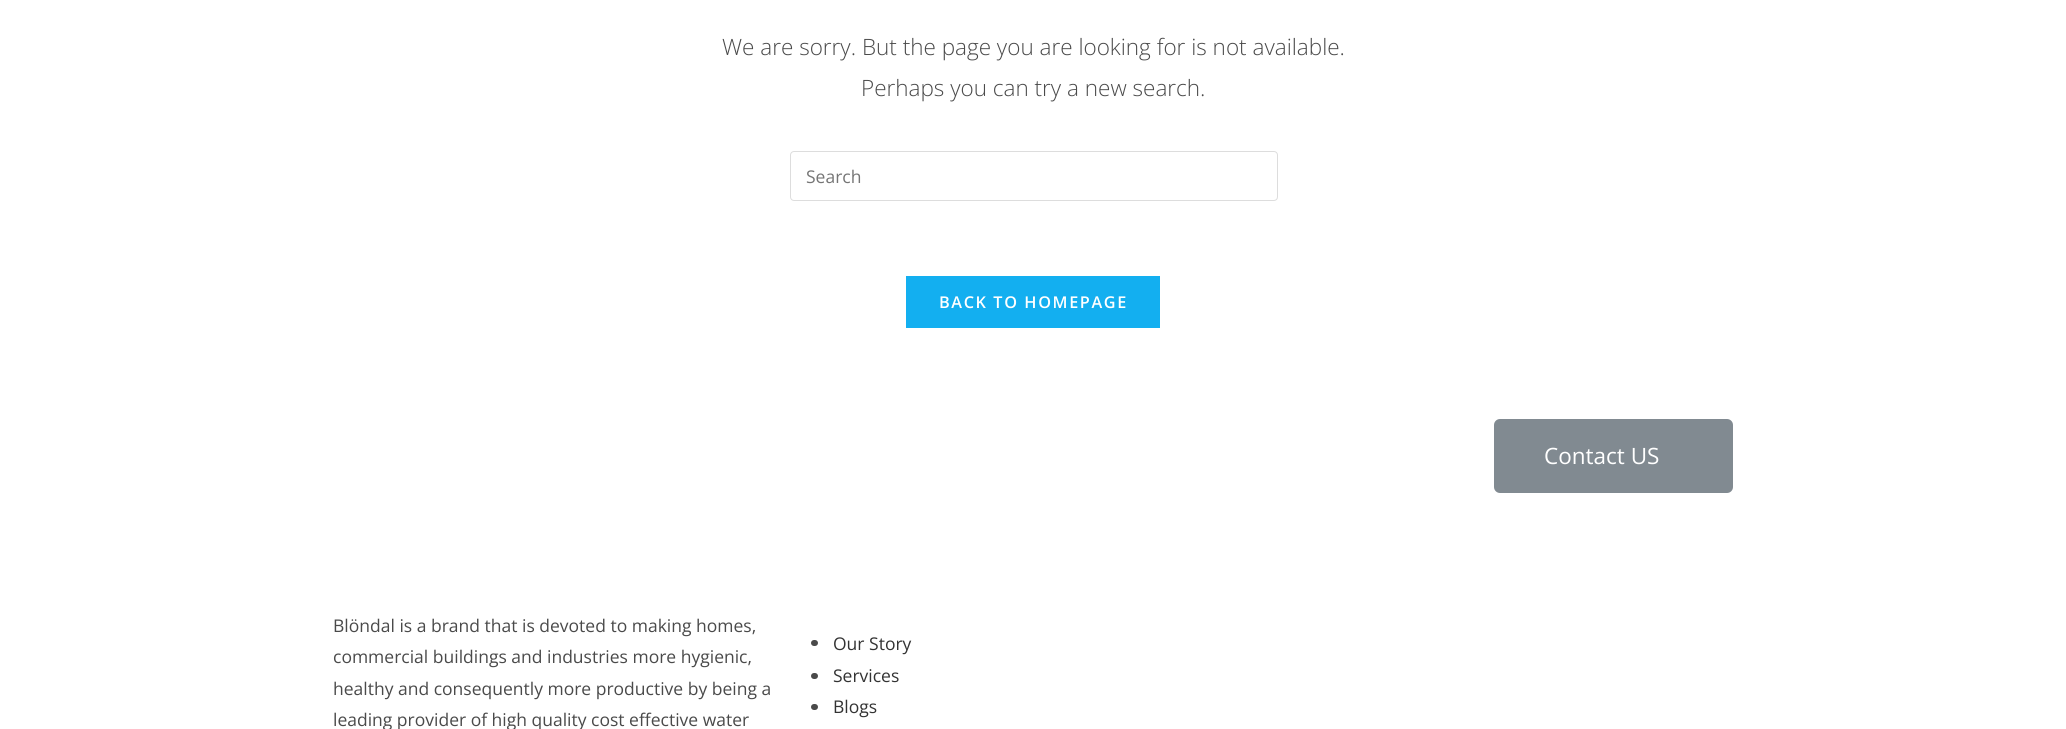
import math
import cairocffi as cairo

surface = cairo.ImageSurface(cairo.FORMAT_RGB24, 2066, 729)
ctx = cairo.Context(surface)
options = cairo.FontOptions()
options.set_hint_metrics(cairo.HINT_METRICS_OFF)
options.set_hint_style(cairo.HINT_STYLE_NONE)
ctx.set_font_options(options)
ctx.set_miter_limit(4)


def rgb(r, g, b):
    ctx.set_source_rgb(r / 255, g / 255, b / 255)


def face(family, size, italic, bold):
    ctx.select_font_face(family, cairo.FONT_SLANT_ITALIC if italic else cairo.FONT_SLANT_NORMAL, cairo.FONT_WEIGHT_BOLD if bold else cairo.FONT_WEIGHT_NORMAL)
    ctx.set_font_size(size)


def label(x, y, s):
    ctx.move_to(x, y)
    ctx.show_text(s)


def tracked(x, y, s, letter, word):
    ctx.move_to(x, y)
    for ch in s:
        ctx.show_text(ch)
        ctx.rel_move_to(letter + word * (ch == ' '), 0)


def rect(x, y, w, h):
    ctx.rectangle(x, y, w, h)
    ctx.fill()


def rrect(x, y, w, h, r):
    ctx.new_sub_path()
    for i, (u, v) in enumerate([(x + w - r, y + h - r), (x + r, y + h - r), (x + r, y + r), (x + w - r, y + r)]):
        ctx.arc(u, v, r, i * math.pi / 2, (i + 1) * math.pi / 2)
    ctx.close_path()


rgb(255, 255, 255)
ctx.paint()
face('Open Sans Light', 22.5, 0, 0)
rgb(74, 74, 74)
label(722, 55, 'We are sorry. But the page you are looking for is not available.')
label(861, 96, 'Perhaps you can try a new search.')
rrect(790.5, 151.5, 487, 49, 3.5)
rgb(221, 221, 221)
ctx.set_line_width(1)
ctx.stroke()
face('Open Sans', 17.5, 0, 0)
rgb(117, 117, 117)
label(806, 183, 'Search')
rgb(19, 175, 240)
rect(906, 276, 254, 52)
face('Open Sans SemiBold', 16.25, 0, 0)
rgb(255, 255, 255)
tracked(939, 308, 'BACK TO HOMEPAGE', 1.6, 0)
rgb(129, 138, 145)
rrect(1494, 419, 239, 74, 6)
ctx.fill()
face('Open Sans', 22.5, 0, 0)
rgb(255, 255, 255)
label(1544, 464, 'Contact US')
face('Open Sans', 17.5, 0, 0)
rgb(74, 74, 74)
label(333, 632, 'Blöndal is a brand that is devoted to making homes,')
label(333, 663, 'commercial buildings and industries more hygienic,')
label(333, 695, 'healthy and consequently more productive by being a')
label(333, 726, 'leading provider of high quality cost effective water')
rrect(811, 640, 7, 6, 3)
ctx.fill()
rgb(51, 51, 51)
label(833, 650, 'Our Story')
rgb(74, 74, 74)
rrect(811, 673, 7, 6, 3)
ctx.fill()
rgb(51, 51, 51)
label(833, 682, 'Services')
rgb(74, 74, 74)
rrect(811, 704, 7, 6, 3)
ctx.fill()
rgb(51, 51, 51)
label(833, 713, 'Blogs')
surface.write_to_png('render.png')
